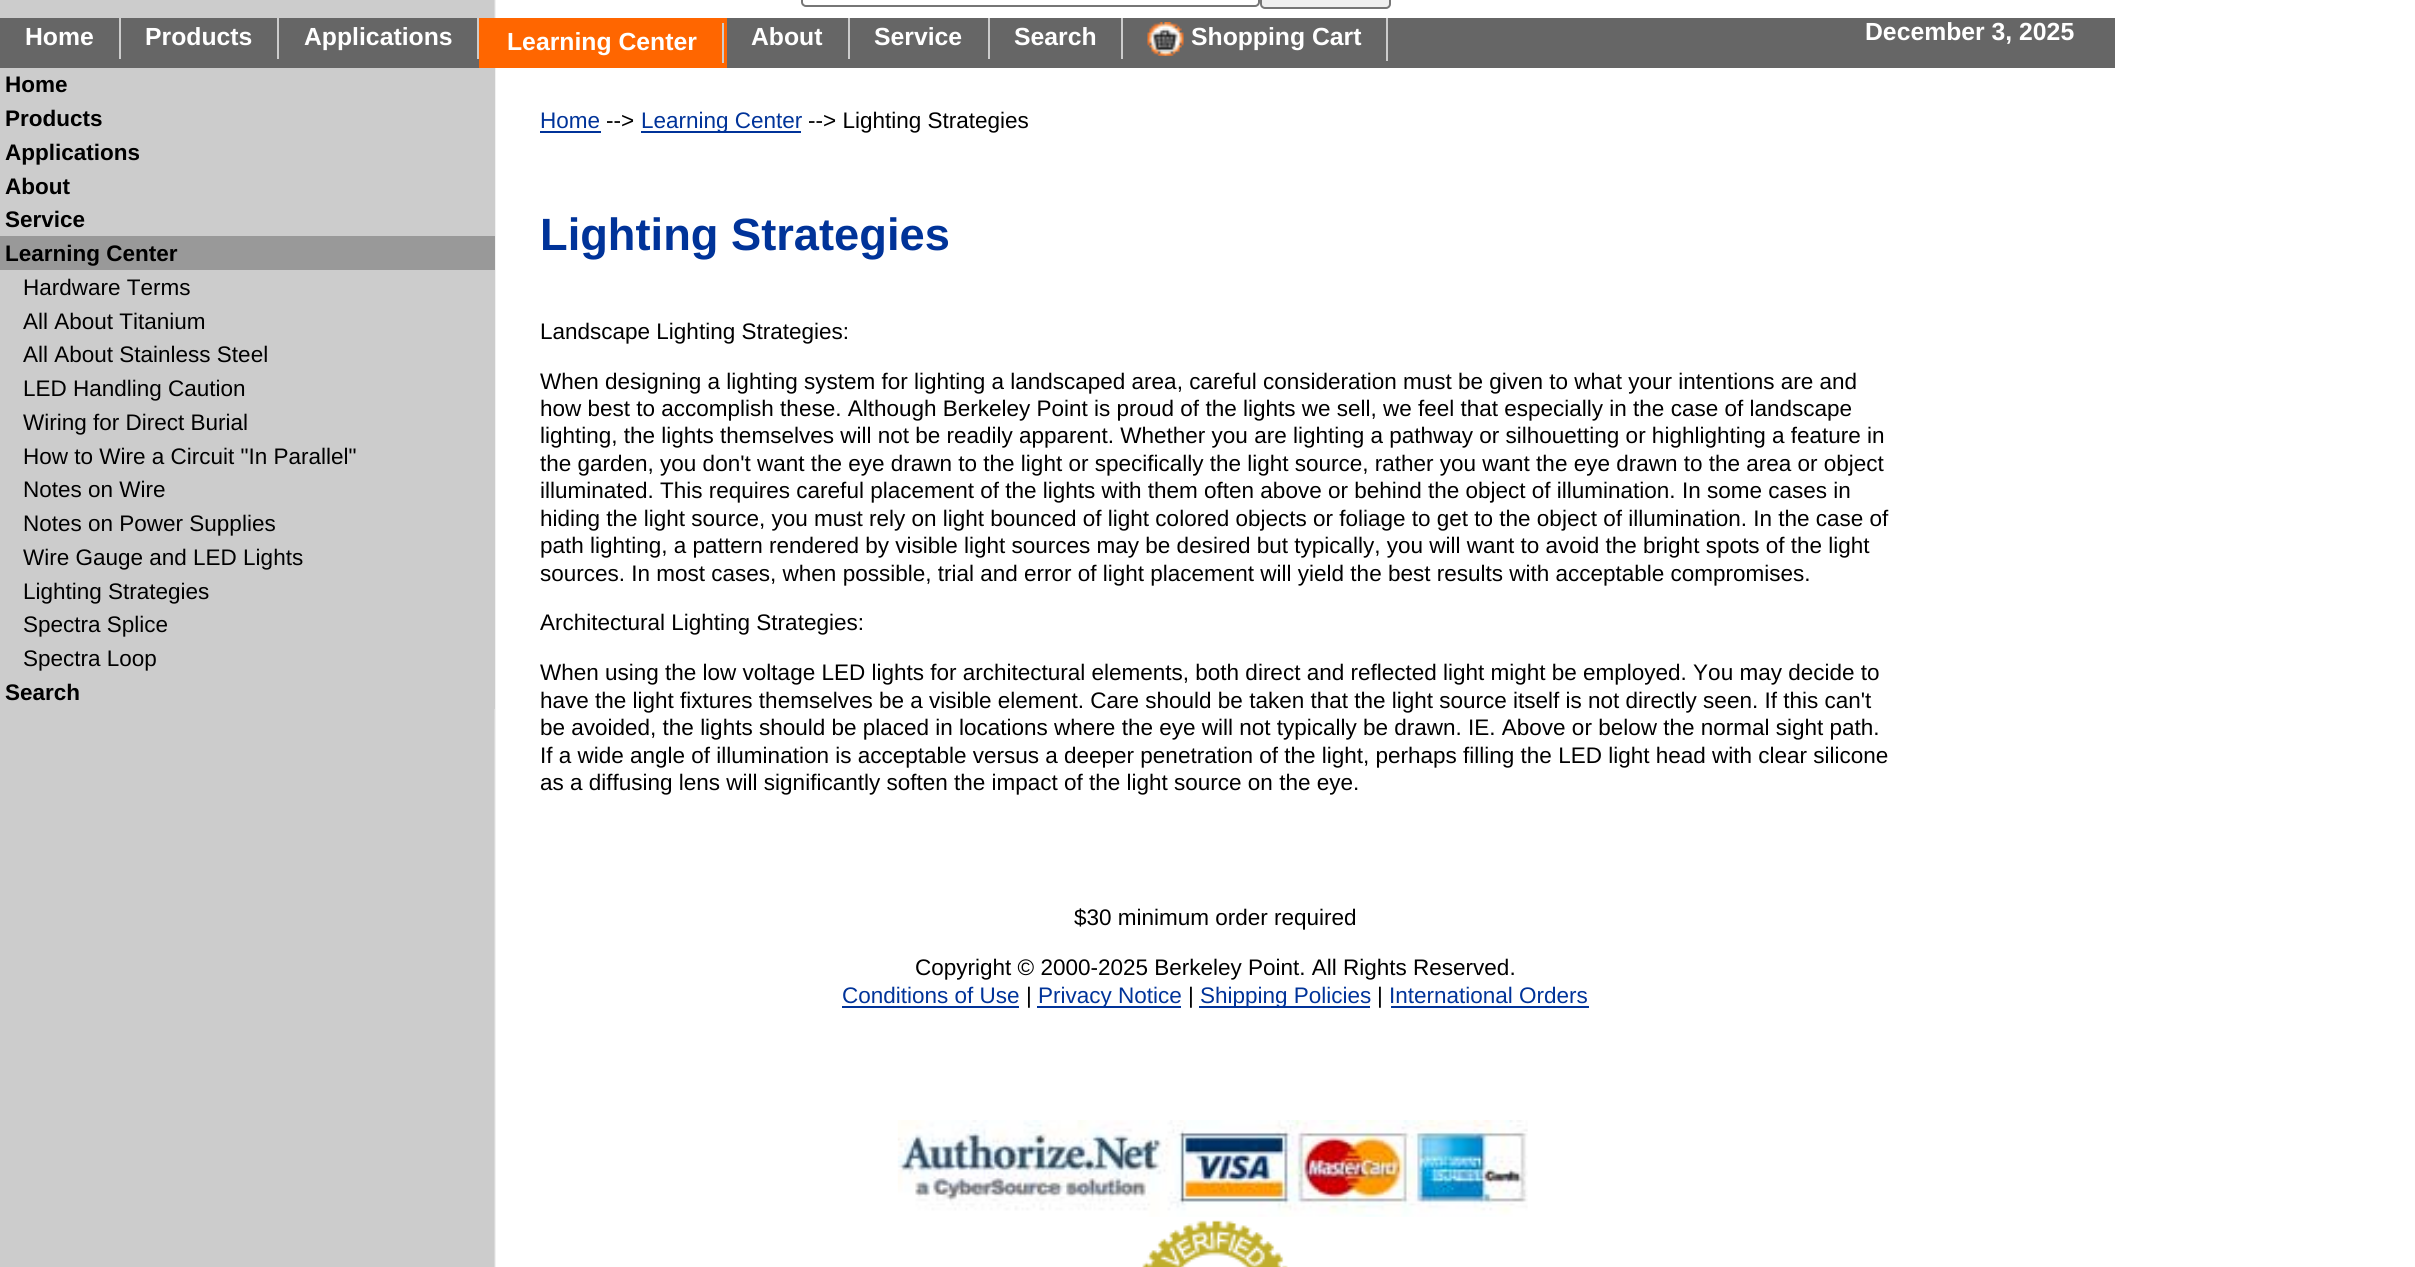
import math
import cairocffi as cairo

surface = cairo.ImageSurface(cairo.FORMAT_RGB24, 2415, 1267)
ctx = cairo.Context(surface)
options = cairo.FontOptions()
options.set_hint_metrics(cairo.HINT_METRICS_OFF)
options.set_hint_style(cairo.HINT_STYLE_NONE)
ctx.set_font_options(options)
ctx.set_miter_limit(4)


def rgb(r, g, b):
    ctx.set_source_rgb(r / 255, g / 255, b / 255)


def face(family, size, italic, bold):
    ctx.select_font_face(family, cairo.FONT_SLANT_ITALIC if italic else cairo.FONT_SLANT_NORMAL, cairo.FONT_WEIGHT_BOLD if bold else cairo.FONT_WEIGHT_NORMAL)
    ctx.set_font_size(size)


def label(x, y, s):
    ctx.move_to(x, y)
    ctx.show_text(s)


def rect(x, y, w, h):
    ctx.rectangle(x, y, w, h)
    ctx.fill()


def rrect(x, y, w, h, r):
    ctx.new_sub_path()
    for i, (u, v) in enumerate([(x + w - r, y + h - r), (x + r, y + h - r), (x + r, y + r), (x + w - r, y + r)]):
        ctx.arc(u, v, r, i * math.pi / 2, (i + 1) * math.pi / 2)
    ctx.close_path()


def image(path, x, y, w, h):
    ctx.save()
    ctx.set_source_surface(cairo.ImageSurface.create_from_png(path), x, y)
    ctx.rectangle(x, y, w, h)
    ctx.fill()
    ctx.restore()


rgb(255, 255, 255)
ctx.paint()
image('image0.png', 0, 0, 496, 1267)
rrect(802, -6, 457, 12, 4)
rgb(118, 118, 118)
ctx.stroke()
rgb(239, 239, 239)
rrect(1261, -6, 129, 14, 4)
ctx.fill_preserve()
rgb(118, 118, 118)
ctx.stroke()
rgb(102, 102, 102)
rect(0, 18, 2115, 50)
rgb(204, 204, 204)
rect(119, 18, 2, 41)
face('Liberation Sans', 24.75, 0, 1)
rgb(255, 255, 255)
label(25, 45, 'Home')
rgb(204, 204, 204)
rect(277, 18, 2, 41)
rgb(255, 255, 255)
label(145, 45, 'Products')
rgb(204, 204, 204)
rect(477, 18, 2, 41)
rgb(255, 255, 255)
label(304, 45, 'Applications')
rgb(255, 102, 0)
rect(479, 18, 248, 50)
rgb(204, 204, 204)
rect(722, 23, 2, 40)
rgb(255, 255, 255)
label(507, 50, 'Learning Center')
rgb(204, 204, 204)
rect(848, 18, 2, 41)
rgb(255, 255, 255)
label(751, 45, 'About')
rgb(204, 204, 204)
rect(988, 18, 2, 41)
rgb(255, 255, 255)
label(874, 45, 'Service')
rgb(204, 204, 204)
rect(1121, 18, 2, 41)
rgb(255, 255, 255)
label(1014, 45, 'Search')
rgb(204, 204, 204)
rect(1386, 18, 2, 43)
image('image1.png', 1147, 22, 37, 34)
rgb(255, 255, 255)
label(1191, 45, 'Shopping Cart')
label(1865, 40, 'December 3, 2025')
rgb(204, 204, 204)
rect(494, 68, 1, 641)
face('Liberation Sans', 22.5, 0, 1)
rgb(0, 0, 0)
label(5, 92, 'Home')
label(5, 126, 'Products')
label(5, 160, 'Applications')
label(5, 194, 'About')
label(5, 227, 'Service')
rgb(153, 153, 153)
rect(0, 236, 495, 34)
rgb(0, 0, 0)
label(5, 261, 'Learning Center')
face('Liberation Sans', 22.5, 0, 0)
label(23, 295, 'Hardware Terms')
label(23, 329, 'All About Titanium')
label(23, 362, 'All About Stainless Steel')
label(23, 396, 'LED Handling Caution')
label(23, 430, 'Wiring for Direct Burial')
label(23, 464, 'How to Wire a Circuit "In Parallel"')
label(23, 497, 'Notes on Wire')
label(23, 531, 'Notes on Power Supplies')
label(23, 565, 'Wire Gauge and LED Lights')
label(23, 599, 'Lighting Strategies')
label(23, 632, 'Spectra Splice')
label(23, 666, 'Spectra Loop')
face('Liberation Sans', 22.5, 0, 1)
label(5, 700, 'Search')
face('Liberation Sans', 22.5, 0, 0)
rgb(0, 51, 153)
label(540, 128, 'Home')
rect(540, 131, 61, 2)
rgb(0, 0, 0)
label(606, 128, '-->')
rgb(0, 51, 153)
rect(641, 131, 160, 2)
label(641, 128, 'Learning Center')
rgb(0, 0, 0)
label(808, 128, '--> Lighting Strategies')
face('Liberation Sans', 45.25, 0, 1)
rgb(0, 51, 153)
label(540, 250, 'Lighting Strategies')
face('Liberation Sans', 22.5, 0, 0)
rgb(0, 0, 0)
label(540, 339, 'Landscape Lighting Strategies:')
label(540, 389, 'When designing a lighting system for lighting a landscaped area, careful consideration must be given to what your intentions are and')
label(540, 416, 'how best to accomplish these. Although Berkeley Point is proud of the lights we sell, we feel that especially in the case of landscape')
label(540, 443, 'lighting, the lights themselves will not be readily apparent. Whether you are lighting a pathway or silhouetting or highlighting a feature in')
label(540, 471, 'the garden, you don\'t want the eye drawn to the light or specifically the light source, rather you want the eye drawn to the area or object')
label(540, 498, 'illuminated. This requires careful placement of the lights with them often above or behind the object of illumination. In some cases in')
label(540, 526, 'hiding the light source, you must rely on light bounced of light colored objects or foliage to get to the object of illumination. In the case of')
label(540, 553, 'path lighting, a pattern rendered by visible light sources may be desired but typically, you will want to avoid the bright spots of the light')
label(540, 581, 'sources. In most cases, when possible, trial and error of light placement will yield the best results with acceptable compromises.')
label(540, 630, 'Architectural Lighting Strategies:')
label(540, 680, 'When using the low voltage LED lights for architectural elements, both direct and reflected light might be employed. You may decide to')
label(540, 708, 'have the light fixtures themselves be a visible element. Care should be taken that the light source itself is not directly seen. If this can\'t')
label(540, 735, 'be avoided, the lights should be placed in locations where the eye will not typically be drawn. IE. Above or below the normal sight path.')
label(540, 763, 'If a wide angle of illumination is acceptable versus a deeper penetration of the light, perhaps filling the LED light head with clear silicone')
label(540, 790, 'as a diffusing lens will significantly soften the impact of the light source on the eye.')
label(1074, 925, '$30 minimum order required')
label(915, 975, 'Copyright © 2000-2025 Berkeley Point. All Rights Reserved.')
rgb(0, 51, 153)
label(842, 1003, 'Conditions of Use')
rect(842, 1006, 177, 2)
rgb(0, 0, 0)
label(1026, 1003, '|')
rgb(0, 51, 153)
rect(1037, 1006, 144, 2)
label(1038, 1003, 'Privacy Notice')
rgb(0, 0, 0)
label(1188, 1003, '|')
rgb(0, 51, 153)
rect(1199, 1006, 171, 2)
label(1200, 1003, 'Shipping Policies')
rgb(0, 0, 0)
label(1377, 1003, '|')
rgb(0, 51, 153)
label(1389, 1003, 'International Orders')
rect(1391, 1006, 198, 2)
image('image2.png', 897, 1120, 631, 97)
image('image3.png', 1142, 1220, 146, 47)
surface.write_to_png('render.png')
